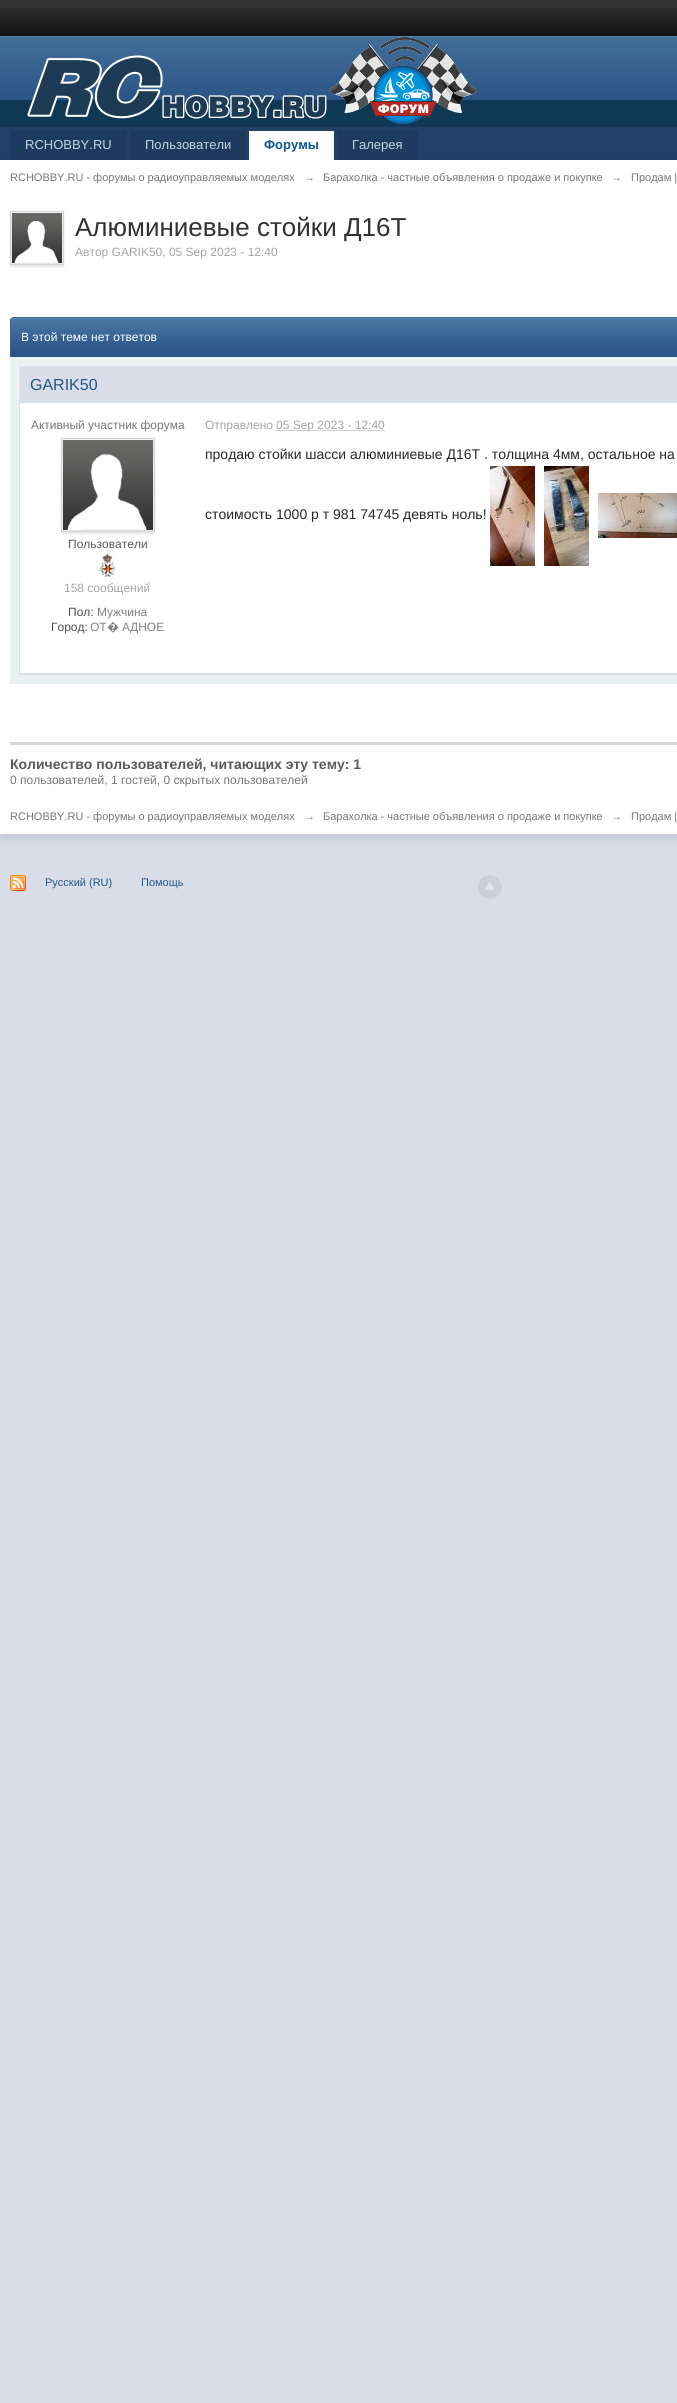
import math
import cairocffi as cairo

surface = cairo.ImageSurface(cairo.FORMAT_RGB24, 677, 2403)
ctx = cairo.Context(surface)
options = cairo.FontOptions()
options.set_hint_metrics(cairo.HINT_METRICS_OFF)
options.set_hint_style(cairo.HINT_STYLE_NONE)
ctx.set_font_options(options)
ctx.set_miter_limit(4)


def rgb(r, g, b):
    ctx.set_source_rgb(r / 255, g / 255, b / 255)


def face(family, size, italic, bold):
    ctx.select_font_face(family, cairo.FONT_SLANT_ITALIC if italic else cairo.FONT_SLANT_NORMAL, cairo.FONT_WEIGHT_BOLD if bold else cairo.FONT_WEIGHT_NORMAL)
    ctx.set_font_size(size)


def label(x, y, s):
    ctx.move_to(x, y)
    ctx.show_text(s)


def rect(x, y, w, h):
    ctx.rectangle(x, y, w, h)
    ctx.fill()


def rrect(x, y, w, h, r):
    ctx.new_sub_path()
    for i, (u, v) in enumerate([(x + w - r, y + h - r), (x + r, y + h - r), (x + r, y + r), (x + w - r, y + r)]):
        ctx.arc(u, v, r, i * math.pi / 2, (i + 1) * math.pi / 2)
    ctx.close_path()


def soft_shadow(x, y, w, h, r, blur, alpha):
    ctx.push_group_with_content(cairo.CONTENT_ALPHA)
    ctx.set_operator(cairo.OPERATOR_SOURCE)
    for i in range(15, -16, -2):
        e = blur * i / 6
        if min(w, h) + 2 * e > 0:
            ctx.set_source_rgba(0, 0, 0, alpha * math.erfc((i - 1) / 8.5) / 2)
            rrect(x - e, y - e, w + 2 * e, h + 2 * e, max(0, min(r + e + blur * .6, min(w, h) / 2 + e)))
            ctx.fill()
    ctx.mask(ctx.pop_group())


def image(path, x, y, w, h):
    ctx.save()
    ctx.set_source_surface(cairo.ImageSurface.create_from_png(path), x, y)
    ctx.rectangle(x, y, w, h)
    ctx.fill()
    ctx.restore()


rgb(216, 221, 232)
ctx.paint()
rgb(50, 50, 50)
rect(0, 0, 677, 8)
image('image0.png', 0, 8, 677, 28)
rgb(15, 56, 84)
rect(0, 100, 677, 26)
image('image1.png', 0, 36, 677, 64)
rgb(27, 55, 89)
rect(0, 126, 677, 1)
image('image2.png', 27, 37, 450, 88)
rgb(32, 64, 102)
rect(0, 127, 677, 33)
rgb(0, 0, 0)
soft_shadow(0, 165, 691, 674, 0, 4.5, 0.1)
rgb(28, 59, 95)
rect(10, 131, 117, 29)
face('Liberation Sans', 13, 0, 0)
rgb(197, 213, 226)
label(25, 149, 'RCHOBBY.RU')
rgb(28, 59, 95)
rect(130, 131, 116, 29)
rgb(197, 213, 226)
label(145, 149, 'Пользователи')
rgb(255, 255, 255)
rect(249, 131, 85, 29)
face('Liberation Sans', 13, 0, 1)
rgb(11, 87, 148)
label(264, 149, 'Форумы')
rgb(28, 59, 95)
rect(337, 131, 81, 29)
face('Liberation Sans', 13, 0, 0)
rgb(197, 213, 226)
label(352, 149, 'Галерея')
rgb(255, 255, 255)
rect(0, 160, 677, 674)
face('Liberation Sans', 11, 0, 0)
rgb(119, 119, 119)
label(10, 181, 'RCHOBBY.RU - форумы о радиоуправляемых моделях')
label(304, 181, '→')
label(323, 181, 'Барахолка - частные объявления о продаже и покупке')
label(611, 181, '→')
label(631, 181, 'Продам |')
rgb(0, 0, 0)
soft_shadow(10, 213, 54, 54, 0, 1, 0.1)
ctx.rectangle(10.5, 211.5, 53, 53)
rgb(213, 213, 213)
ctx.set_line_width(1)
ctx.stroke()
image('image3.png', 12, 213, 50, 50)
face('Liberation Sans', 26, 0, 0)
rgb(50, 50, 50)
label(75, 236, 'Алюминиевые стойки Д16Т')
face('Liberation Sans', 12, 0, 0)
rgb(164, 164, 164)
label(75, 256, 'Автор GARIK50, 05 Sep 2023 - 12:40')
rgb(44, 86, 135)
rect(11, 353, 666, 4)
image('image4.png', 10, 318, 667, 35)
rgb(82, 140, 188)
ctx.new_path()
ctx.move_to(14, 319)
ctx.line_to(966, 319)
ctx.curve_to(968, 319, 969, 320, 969, 322)
ctx.curve_to(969, 320, 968, 318, 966, 318)
ctx.line_to(14, 318)
ctx.curve_to(12, 318, 11, 320, 11, 322)
ctx.curve_to(11, 320, 12, 319, 14, 319)
ctx.close_path()
ctx.fill()
rgb(49, 104, 151)
ctx.set_fill_rule(cairo.FILL_RULE_EVEN_ODD)
ctx.new_path()
ctx.move_to(14, 317)
ctx.line_to(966, 317)
ctx.curve_to(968, 317, 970, 319, 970, 321)
ctx.line_to(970, 357)
ctx.line_to(10, 357)
ctx.line_to(10, 321)
ctx.curve_to(10, 319, 12, 317, 14, 317)
ctx.close_path()
ctx.move_to(14, 318)
ctx.line_to(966, 318)
ctx.curve_to(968, 318, 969, 319, 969, 321)
ctx.line_to(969, 357)
ctx.line_to(11, 357)
ctx.line_to(11, 321)
ctx.curve_to(11, 319, 12, 318, 14, 318)
ctx.close_path()
ctx.fill()
rgb(255, 255, 255)
label(21, 341, 'В этой теме нет ответов')
rgb(235, 240, 243)
rect(10, 357, 667, 327)
rgb(255, 255, 255)
rect(20, 403, 657, 270)
ctx.rectangle(19.5, 366.5, 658, 308)
rgb(219, 228, 239)
ctx.stroke()
rgb(214, 226, 235)
rect(20, 673, 657, 1)
rgb(216, 221, 232)
rect(20, 367, 657, 36)
face('Liberation Sans', 16, 0, 0)
rgb(34, 89, 133)
label(30, 390, 'GARIK50')
face('Liberation Sans', 12, 0, 0)
rgb(119, 119, 119)
label(31, 429, 'Активный участник форума')
rgb(0, 0, 0)
soft_shadow(61, 440, 94, 94, 0, 1, 0.1)
ctx.rectangle(61.5, 438.5, 93, 93)
rgb(213, 213, 213)
ctx.stroke()
image('image5.png', 63, 440, 90, 90)
rgb(90, 90, 90)
label(68, 548, 'Пользователи')
image('image6.png', 99, 553, 17, 25)
rgb(164, 164, 164)
label(64, 592, '158 сообщений')
rgb(80, 80, 80)
label(68, 616, 'Пол:')
rgb(129, 129, 129)
label(97, 616, 'Мужчина')
rgb(80, 80, 80)
label(51, 631, 'Город:')
rgb(129, 129, 129)
label(90, 631, 'ОТ')
face('Noto Sans', 12, 0, 0)
label(107, 631, '�')
face('Liberation Sans', 12, 0, 0)
label(122, 631, 'АДНОЕ')
rgb(164, 164, 164)
label(205, 429, 'Отправлено')
ctx.new_path()
ctx.move_to(276.5, 430.5)
ctx.line_to(385, 430.5)
ctx.set_dash([1, 1])
ctx.stroke()
label(276, 429, '05 Sep 2023 - 12:40')
face('Liberation Sans', 14, 0, 0)
rgb(40, 40, 40)
label(205, 459, 'продаю стойки шасси алюминиевые Д16Т . толщина 4мм, остальное на')
label(205, 519, 'стоимость 1000 р т 981 74745 девять ноль!')
image('image7.png', 490, 466, 45, 100)
image('image8.png', 544, 466, 45, 100)
image('image9.png', 598, 493, 79, 45)
rgb(216, 216, 216)
rect(10, 742, 667, 3)
face('Liberation Sans', 14, 0, 1)
rgb(90, 90, 90)
label(10, 769, 'Количество пользователей, читающих эту тему: 1')
face('Liberation Sans', 12, 0, 0)
rgb(119, 119, 119)
label(10, 784, '0 пользователей, 1 гостей, 0 скрытых пользователей')
face('Liberation Sans', 11, 0, 0)
label(10, 820, 'RCHOBBY.RU - форумы о радиоуправляемых моделях')
label(304, 820, '→')
label(323, 820, 'Барахолка - частные объявления о продаже и покупке')
label(611, 820, '→')
label(631, 820, 'Продам |')
image('image10.png', 10, 875, 16, 16)
rgb(34, 89, 133)
label(45, 886, 'Русский (RU)')
label(141, 886, 'Помощь')
rgb(205, 208, 215)
ctx.new_path()
ctx.arc(490, 887, 12, 0, 2 * math.pi)
ctx.fill()
image('image11.png', 485, 882, 10, 8)
surface.write_to_png('render.png')
